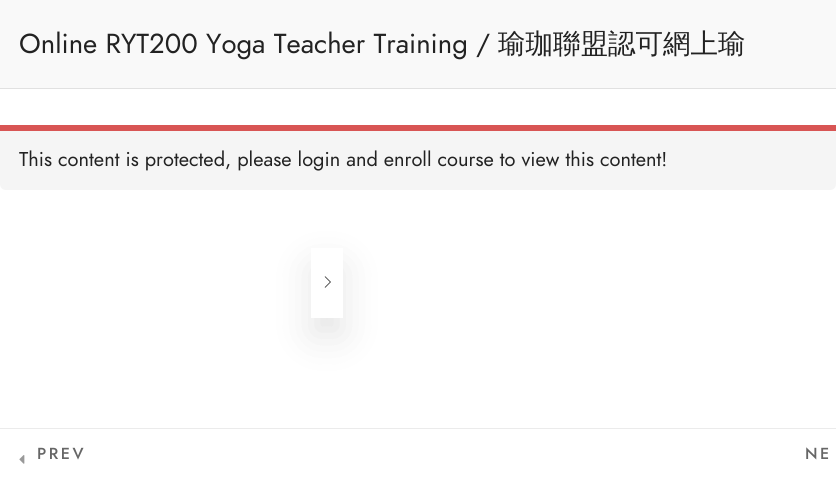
import math
import cairocffi as cairo

surface = cairo.ImageSurface(cairo.FORMAT_RGB24, 836, 491)
ctx = cairo.Context(surface)
options = cairo.FontOptions()
options.set_hint_metrics(cairo.HINT_METRICS_OFF)
options.set_hint_style(cairo.HINT_STYLE_NONE)
ctx.set_font_options(options)
ctx.set_miter_limit(4)


def rgb(r, g, b):
    ctx.set_source_rgb(r / 255, g / 255, b / 255)


def face(family, size, italic, bold):
    ctx.select_font_face(family, cairo.FONT_SLANT_ITALIC if italic else cairo.FONT_SLANT_NORMAL, cairo.FONT_WEIGHT_BOLD if bold else cairo.FONT_WEIGHT_NORMAL)
    ctx.set_font_size(size)


def label(x, y, s):
    ctx.move_to(x, y)
    ctx.show_text(s)


def tracked(x, y, s, letter, word):
    ctx.move_to(x, y)
    for ch in s:
        ctx.show_text(ch)
        ctx.rel_move_to(letter + word * (ch == ' '), 0)


def rect(x, y, w, h):
    ctx.rectangle(x, y, w, h)
    ctx.fill()


def rrect(x, y, w, h, r):
    ctx.new_sub_path()
    for i, (u, v) in enumerate([(x + w - r, y + h - r), (x + r, y + h - r), (x + r, y + r), (x + w - r, y + r)]):
        ctx.arc(u, v, r, i * math.pi / 2, (i + 1) * math.pi / 2)
    ctx.close_path()


def soft_shadow(x, y, w, h, r, blur, alpha):
    ctx.push_group_with_content(cairo.CONTENT_ALPHA)
    ctx.set_operator(cairo.OPERATOR_SOURCE)
    for i in range(15, -16, -2):
        e = blur * i / 6
        if min(w, h) + 2 * e > 0:
            ctx.set_source_rgba(0, 0, 0, alpha * math.erfc((i - 1) / 8.5) / 2)
            rrect(x - e, y - e, w + 2 * e, h + 2 * e, max(0, min(r + e + blur * .6, min(w, h) / 2 + e)))
            ctx.fill()
    ctx.mask(ctx.pop_group())


def image(path, x, y, w, h):
    ctx.save()
    ctx.set_source_surface(cairo.ImageSurface.create_from_png(path), x, y)
    ctx.rectangle(x, y, w, h)
    ctx.fill()
    ctx.restore()


rgb(255, 255, 255)
ctx.paint()
rgb(249, 249, 249)
rect(0, 0, 836, 88)
rgb(225, 225, 225)
rect(0, 88, 836, 1)
face('Jost', 27.5, 0, 0)
rgb(34, 34, 34)
label(19, 53, 'Online RYT200 Yoga Teacher Training /')
face('WenQuanYi Zen Hei Medium', 27.5, 0, 0)
label(498, 53, '瑜珈聯盟認可網上瑜')
rgb(245, 245, 245)
ctx.new_path()
ctx.move_to(0, 125)
ctx.line_to(836, 125)
ctx.line_to(836, 184)
ctx.curve_to(836, 187.5, 833.5, 190, 830, 190)
ctx.line_to(6, 190)
ctx.curve_to(2.5, 190, 0, 187.5, 0, 184)
ctx.close_path()
ctx.fill()
rgb(216, 85, 84)
rect(0, 125, 836, 6)
face('Jost', 20, 0, 0)
rgb(34, 34, 34)
label(19, 166, 'This content is protected, please login and enroll course to view this content!')
rgb(0, 0, 0)
soft_shadow(311, 266, 32, 70, 0, 19, 0.1)
rgb(255, 255, 255)
rect(311, 248, 32, 70)
image('image0.png', 324, 276, 7, 12)
rgb(235, 235, 235)
rect(0, 428, 836, 1)
image('image1.png', 19, 455, 6, 9)
face('Jost Medium', 16, 0, 0)
rgb(102, 102, 102)
tracked(37, 459, 'PREV', 2.5, 0)
tracked(805, 459, 'NE', 2.5, 0)
surface.write_to_png('render.png')
